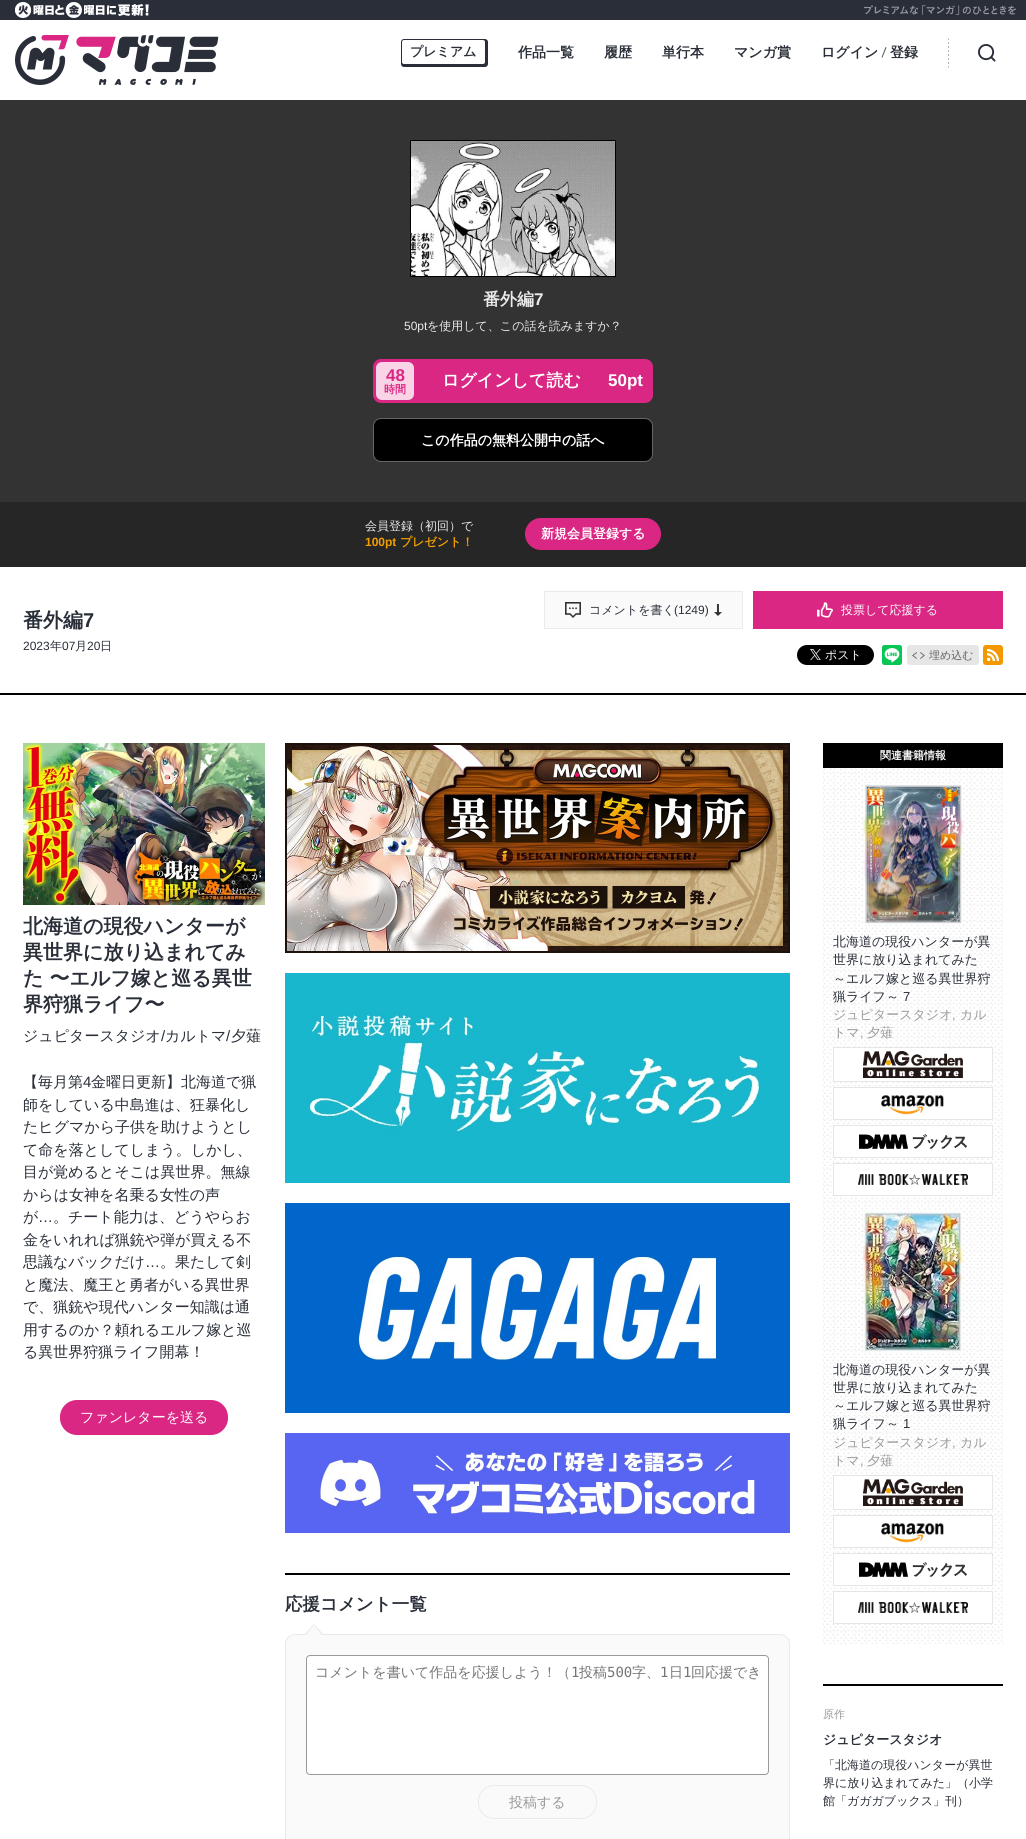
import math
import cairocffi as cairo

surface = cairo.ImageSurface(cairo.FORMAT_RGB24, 1026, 1839)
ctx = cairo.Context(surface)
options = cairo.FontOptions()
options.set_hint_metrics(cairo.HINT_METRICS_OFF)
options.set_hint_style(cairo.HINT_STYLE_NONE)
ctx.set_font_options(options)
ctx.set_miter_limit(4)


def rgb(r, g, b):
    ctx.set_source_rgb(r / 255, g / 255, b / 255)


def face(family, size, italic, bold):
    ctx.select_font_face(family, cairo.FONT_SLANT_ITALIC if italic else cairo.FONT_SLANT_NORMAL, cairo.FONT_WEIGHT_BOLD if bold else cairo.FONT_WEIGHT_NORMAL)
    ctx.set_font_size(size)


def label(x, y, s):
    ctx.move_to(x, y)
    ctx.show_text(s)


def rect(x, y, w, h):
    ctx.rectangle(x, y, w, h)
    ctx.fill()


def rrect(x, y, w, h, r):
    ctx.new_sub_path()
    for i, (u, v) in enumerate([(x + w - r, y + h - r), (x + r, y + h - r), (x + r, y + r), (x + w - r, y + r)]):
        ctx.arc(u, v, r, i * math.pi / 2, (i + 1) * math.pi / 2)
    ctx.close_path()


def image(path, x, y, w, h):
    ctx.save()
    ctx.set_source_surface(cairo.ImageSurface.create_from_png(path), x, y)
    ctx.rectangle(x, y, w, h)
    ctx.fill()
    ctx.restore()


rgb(255, 255, 255)
ctx.paint()
rgb(41, 46, 56)
rect(0, 0, 1026, 20)
image('image0.png', 864, 5, 152, 10)
image('image1.png', 15, 2, 134, 16)
image('image2.png', 15, 35, 204, 50)
rrect(401, 39, 87, 28, 3)
ctx.fill()
rgb(255, 255, 255)
rrect(402, 40, 83, 24, 2)
ctx.fill()
face('WenQuanYi Zen Hei', 13, 0, 1)
rgb(41, 46, 56)
label(410, 56, 'プレミアム')
face('WenQuanYi Zen Hei', 14, 0, 1)
label(518, 57, '作品一覧')
label(604, 57, '履歴')
label(662, 57, '単行本')
label(734, 57, 'マンガ賞')
label(821, 57, 'ログイン')
rgb(84, 88, 96)
ctx.new_path()
ctx.move_to(885.5, 47)
ctx.line_to(886.5, 47.5)
ctx.line_to(882.5, 57.5)
ctx.line_to(881.5, 57.5)
ctx.close_path()
ctx.fill()
rgb(41, 46, 56)
label(890, 57, '登録')
image('image3.png', 948, 38, 1, 30)
image('image4.png', 978, 44, 18, 18)
rgb(51, 51, 51)
rect(0, 100, 1026, 402)
ctx.rectangle(410.5, 140.5, 205, 136)
rgb(0, 0, 0)
ctx.set_line_width(1)
ctx.stroke()
image('image5.png', 411, 141, 204, 135)
face('WenQuanYi Zen Hei', 17, 0, 1)
rgb(234, 234, 234)
label(483, 305, '番外編')
face('Liberation Sans', 17, 0, 1)
label(534, 305, '7')
face('Liberation Sans', 12, 0, 0)
label(404, 330, '50pt')
face('WenQuanYi Zen Hei Medium', 12, 0, 0)
label(427, 330, 'を使用して、この話を読みますか？')
rgb(218, 39, 131)
rrect(373, 359, 280, 44, 8)
ctx.fill()
rgb(248, 212, 230)
rrect(376, 362, 38, 38, 6)
ctx.fill()
face('Liberation Sans', 17, 0, 1)
rgb(218, 39, 131)
label(386, 381, '48')
face('WenQuanYi Zen Hei', 11, 0, 1)
label(384, 393, '時間')
face('WenQuanYi Zen Hei', 17, 0, 1)
rgb(255, 255, 255)
label(442, 386, 'ログインして読む')
face('Liberation Sans', 17, 0, 1)
label(608, 386, '50pt')
rgb(0, 0, 0)
rrect(373.5, 418.5, 279, 43, 7.5)
ctx.fill_preserve()
rgb(102, 102, 102)
ctx.stroke()
face('WenQuanYi Zen Hei', 14, 0, 1)
rgb(255, 255, 255)
label(421, 445, 'この作品の無料公開中の話へ')
rgb(38, 38, 38)
rect(0, 502, 1026, 65)
face('WenQuanYi Zen Hei Medium', 12, 0, 0)
rgb(234, 234, 234)
label(365, 530, '会員登録（初回）で')
face('Liberation Sans', 12, 0, 1)
rgb(241, 159, 0)
label(365, 546, '100pt')
face('WenQuanYi Zen Hei', 12, 0, 1)
label(400, 546, 'プレゼント！')
rgb(218, 39, 131)
rrect(525, 518, 136, 32, 16)
ctx.fill()
face('WenQuanYi Zen Hei', 13, 0, 1)
rgb(255, 255, 255)
label(541, 538, '新規会員登録する')
rgb(0, 0, 0)
rect(0, 693, 1026, 2)
face('WenQuanYi Zen Hei', 20, 0, 1)
rgb(41, 46, 56)
label(23, 627, '番外編')
face('Liberation Sans', 20, 0, 1)
label(83, 627, '7')
face('Liberation Sans', 12, 0, 0)
label(23, 650, '2023')
face('WenQuanYi Zen Hei Medium', 12, 0, 0)
label(50, 650, '年')
face('Liberation Sans', 12, 0, 0)
label(62, 650, '07')
face('WenQuanYi Zen Hei Medium', 12, 0, 0)
label(75, 650, '月')
face('Liberation Sans', 12, 0, 0)
label(87, 650, '20')
face('WenQuanYi Zen Hei Medium', 12, 0, 0)
label(100, 650, '日')
rgb(250, 250, 250)
ctx.rectangle(544.5, 591.5, 198, 37)
ctx.fill_preserve()
rgb(234, 234, 234)
ctx.stroke()
image('image6.png', 565, 602, 16, 16)
rgb(41, 46, 56)
label(589, 614, 'コメントを書く')
face('Liberation Sans', 12, 0, 0)
label(674, 614, '(1249)')
image('image7.png', 714, 604, 8, 12)
rgb(218, 39, 131)
rect(753, 591, 250, 38)
image('image8.png', 817, 602, 16, 16)
face('WenQuanYi Zen Hei Medium', 12, 0, 0)
rgb(255, 255, 255)
label(841, 614, '投票して応援する')
rgb(0, 0, 0)
rrect(797, 645, 77, 20, 10)
ctx.fill()
image('image9.png', 810, 649, 11, 11)
rgb(255, 255, 255)
label(825, 659, 'ポスト')
image('image10.png', 882, 645, 20, 20)
rgb(230, 230, 230)
rrect(907, 645, 72, 20, 3)
ctx.fill()
image('image11.png', 912, 652, 13, 7)
face('WenQuanYi Zen Hei Medium', 11, 0, 0)
rgb(102, 102, 102)
label(929, 659, '埋め込む')
rgb(243, 152, 1)
rrect(983, 645, 20, 20, 3)
ctx.fill()
image('image12.png', 987, 649, 12, 12)
image('image13.png', 23, 743, 242, 162)
face('WenQuanYi Zen Hei', 20, 0, 1)
rgb(41, 46, 56)
label(23, 933, '北海道の現役ハンターが')
label(23, 959, '異世界に放り込まれてみ')
label(23, 985, 'た 〜エルフ嫁と巡る異世')
label(23, 1011, '界狩猟ライフ〜')
face('WenQuanYi Zen Hei Medium', 15, 0, 0)
label(23, 1041, 'ジュピタースタジオ')
face('Liberation Sans', 15, 0, 0)
label(161, 1041, '/')
face('WenQuanYi Zen Hei Medium', 15, 0, 0)
label(165, 1041, 'カルトマ')
face('Liberation Sans', 15, 0, 0)
label(226, 1041, '/')
face('WenQuanYi Zen Hei Medium', 15, 0, 0)
label(231, 1041, '夕薙')
label(23, 1087, '【毎月第')
face('Liberation Sans', 15, 0, 0)
label(83, 1087, '4')
face('WenQuanYi Zen Hei Medium', 15, 0, 0)
label(91, 1087, '金曜日更新】北海道で猟')
label(23, 1110, '師をしている中島進は、狂暴化し')
label(23, 1132, 'たヒグマから子供を助けようとし')
label(23, 1155, 'て命を落としてしまう。しかし、')
label(23, 1177, '目が覚めるとそこは異世界。無線')
label(23, 1200, 'からは女神を名乗る女性の声')
label(23, 1222, 'が')
face('Liberation Sans', 15, 0, 0)
label(38, 1222, '…')
face('WenQuanYi Zen Hei Medium', 15, 0, 0)
label(53, 1222, '。チート能力は、どうやらお')
label(23, 1245, '金をいれれば猟銃や弾が買える不')
label(23, 1267, '思議なバックだけ')
face('Liberation Sans', 15, 0, 0)
label(145, 1267, '…')
face('WenQuanYi Zen Hei Medium', 15, 0, 0)
label(160, 1267, '。果たして剣')
label(23, 1290, 'と魔法、魔王と勇者がいる異世界')
label(23, 1312, 'で、猟銃や現代ハンター知識は通')
label(23, 1335, '用するのか？頼れるエルフ嫁と巡')
label(23, 1357, 'る異世界狩猟ライフ開幕！')
rgb(218, 39, 131)
rrect(60, 1400, 168, 35, 17)
ctx.fill()
face('WenQuanYi Zen Hei Medium', 14, 0, 0)
rgb(255, 255, 255)
label(80, 1422, 'ファンレターを送る')
image('image14.png', 823, 768, 180, 876)
rgb(0, 0, 0)
rect(823, 743, 180, 25)
face('WenQuanYi Zen Hei', 11, 0, 1)
rgb(255, 255, 255)
label(880, 759, '関連書籍情報')
image('image15.png', 863, 783, 100, 142)
face('WenQuanYi Zen Hei Medium', 13, 0, 0)
rgb(41, 46, 56)
label(833, 946, '北海道の現役ハンターが異')
label(833, 964, '世界に放り込まれてみた')
label(833, 983, '～エルフ嫁と巡る異世界狩')
label(833, 1001, '猟ライフ～')
face('Liberation Sans', 13, 0, 0)
label(903, 1001, '7')
face('WenQuanYi Zen Hei Medium', 13, 0, 0)
rgb(153, 153, 153)
label(833, 1019, 'ジュピタースタジオ')
face('Liberation Sans', 13, 0, 0)
label(952, 1019, ',')
face('WenQuanYi Zen Hei Medium', 13, 0, 0)
label(960, 1019, 'カル')
label(833, 1037, 'トマ')
face('Liberation Sans', 13, 0, 0)
label(860, 1037, ',')
face('WenQuanYi Zen Hei Medium', 13, 0, 0)
label(867, 1037, '夕薙')
rgb(255, 255, 255)
ctx.rectangle(833.5, 1047.5, 159, 34)
ctx.fill_preserve()
rgb(230, 230, 230)
ctx.stroke()
image('image16.png', 863, 1051, 100, 27)
rgb(255, 255, 255)
rect(834, 1089, 158, 30)
ctx.rectangle(833.5, 1087.5, 159, 32)
rgb(230, 230, 230)
ctx.stroke()
image('image17.png', 881, 1095, 63, 20)
rgb(255, 255, 255)
ctx.rectangle(833.5, 1125.5, 159, 32)
ctx.fill_preserve()
rgb(230, 230, 230)
ctx.stroke()
image('image18.png', 859, 1134, 108, 15)
rgb(255, 255, 255)
ctx.rectangle(833.5, 1163.5, 159, 32)
ctx.fill_preserve()
rgb(230, 230, 230)
ctx.stroke()
image('image19.png', 858, 1174, 110, 11)
image('image20.png', 863, 1211, 100, 142)
rgb(41, 46, 56)
label(833, 1374, '北海道の現役ハンターが異')
label(833, 1392, '世界に放り込まれてみた')
label(833, 1410, '～エルフ嫁と巡る異世界狩')
label(833, 1428, '猟ライフ～')
face('Liberation Sans', 13, 0, 0)
label(903, 1428, '1')
face('WenQuanYi Zen Hei Medium', 13, 0, 0)
rgb(153, 153, 153)
label(833, 1447, 'ジュピタースタジオ')
face('Liberation Sans', 13, 0, 0)
label(952, 1447, ',')
face('WenQuanYi Zen Hei Medium', 13, 0, 0)
label(960, 1447, 'カル')
label(833, 1465, 'トマ')
face('Liberation Sans', 13, 0, 0)
label(860, 1465, ',')
face('WenQuanYi Zen Hei Medium', 13, 0, 0)
label(867, 1465, '夕薙')
rgb(255, 255, 255)
ctx.rectangle(833.5, 1475.5, 159, 34)
ctx.fill_preserve()
rgb(230, 230, 230)
ctx.stroke()
image('image16.png', 863, 1479, 100, 27)
rgb(255, 255, 255)
ctx.rectangle(833.5, 1515.5, 159, 32)
ctx.fill_preserve()
rgb(230, 230, 230)
ctx.stroke()
image('image17.png', 881, 1523, 63, 20)
rgb(255, 255, 255)
ctx.rectangle(833.5, 1553.5, 159, 32)
ctx.fill_preserve()
rgb(230, 230, 230)
ctx.stroke()
image('image21.png', 859, 1562, 108, 15)
rgb(255, 255, 255)
rect(834, 1593, 158, 29)
ctx.rectangle(833.5, 1591.5, 159, 32)
rgb(230, 230, 230)
ctx.stroke()
image('image19.png', 858, 1602, 110, 11)
rgb(0, 0, 0)
rect(823, 1684, 180, 2)
face('WenQuanYi Zen Hei Medium', 11, 0, 0)
rgb(153, 153, 153)
label(823, 1718, '原作')
face('WenQuanYi Zen Hei', 13, 0, 1)
rgb(41, 46, 56)
label(823, 1744, 'ジュピタースタジオ')
face('WenQuanYi Zen Hei Medium', 12, 0, 0)
label(823, 1769, '「北海道の現役ハンターが異世')
label(823, 1787, '界に放り込まれてみた」（小学')
label(823, 1805, '館「ガガガブックス」刊）')
image('image22.png', 285, 743, 505, 210)
image('image23.png', 285, 973, 505, 210)
image('image24.png', 285, 1203, 505, 210)
image('image25.png', 285, 1433, 505, 100)
rgb(0, 0, 0)
rect(285, 1573, 505, 2)
face('WenQuanYi Zen Hei', 17.5, 0, 1)
rgb(41, 46, 56)
label(285, 1610, '応援コメント一覧')
rgb(250, 250, 250)
rrect(285.5, 1634.5, 504, 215, 9.5)
ctx.fill_preserve()
rgb(234, 234, 234)
ctx.stroke()
ctx.new_path()
ctx.move_to(324, 1635)
ctx.line_to(304, 1635)
ctx.line_to(314, 1624)
ctx.close_path()
ctx.fill()
rgb(250, 250, 250)
ctx.new_path()
ctx.move_to(322, 1635)
ctx.line_to(306, 1635)
ctx.line_to(314, 1625)
ctx.close_path()
ctx.fill()
rgb(255, 255, 255)
rrect(306.5, 1655.5, 462, 119, 3.5)
ctx.fill_preserve()
rgb(153, 153, 153)
ctx.stroke()
face('WenQuanYi Zen Hei Medium', 14, 0, 0)
rgb(117, 117, 117)
label(315, 1677, 'コメントを書いて作品を応援しよう！（')
face('DejaVu Sans Mono', 14, 0, 0)
label(571, 1677, '1')
face('WenQuanYi Zen Hei Medium', 14, 0, 0)
label(579, 1677, '投稿')
face('DejaVu Sans Mono', 14, 0, 0)
label(607, 1677, '500')
face('WenQuanYi Zen Hei Medium', 14, 0, 0)
label(632, 1677, '字、')
face('DejaVu Sans Mono', 14, 0, 0)
label(660, 1677, '1')
face('WenQuanYi Zen Hei Medium', 14, 0, 0)
label(669, 1677, '日')
face('DejaVu Sans Mono', 14, 0, 0)
label(683, 1677, '1')
face('WenQuanYi Zen Hei Medium', 14, 0, 0)
label(691, 1677, '回応援でき')
rrect(478.5, 1785.5, 118, 33, 15.5)
rgb(234, 234, 234)
ctx.stroke()
rgb(153, 153, 153)
label(509, 1807, '投稿する')
surface.write_to_png('render.png')
